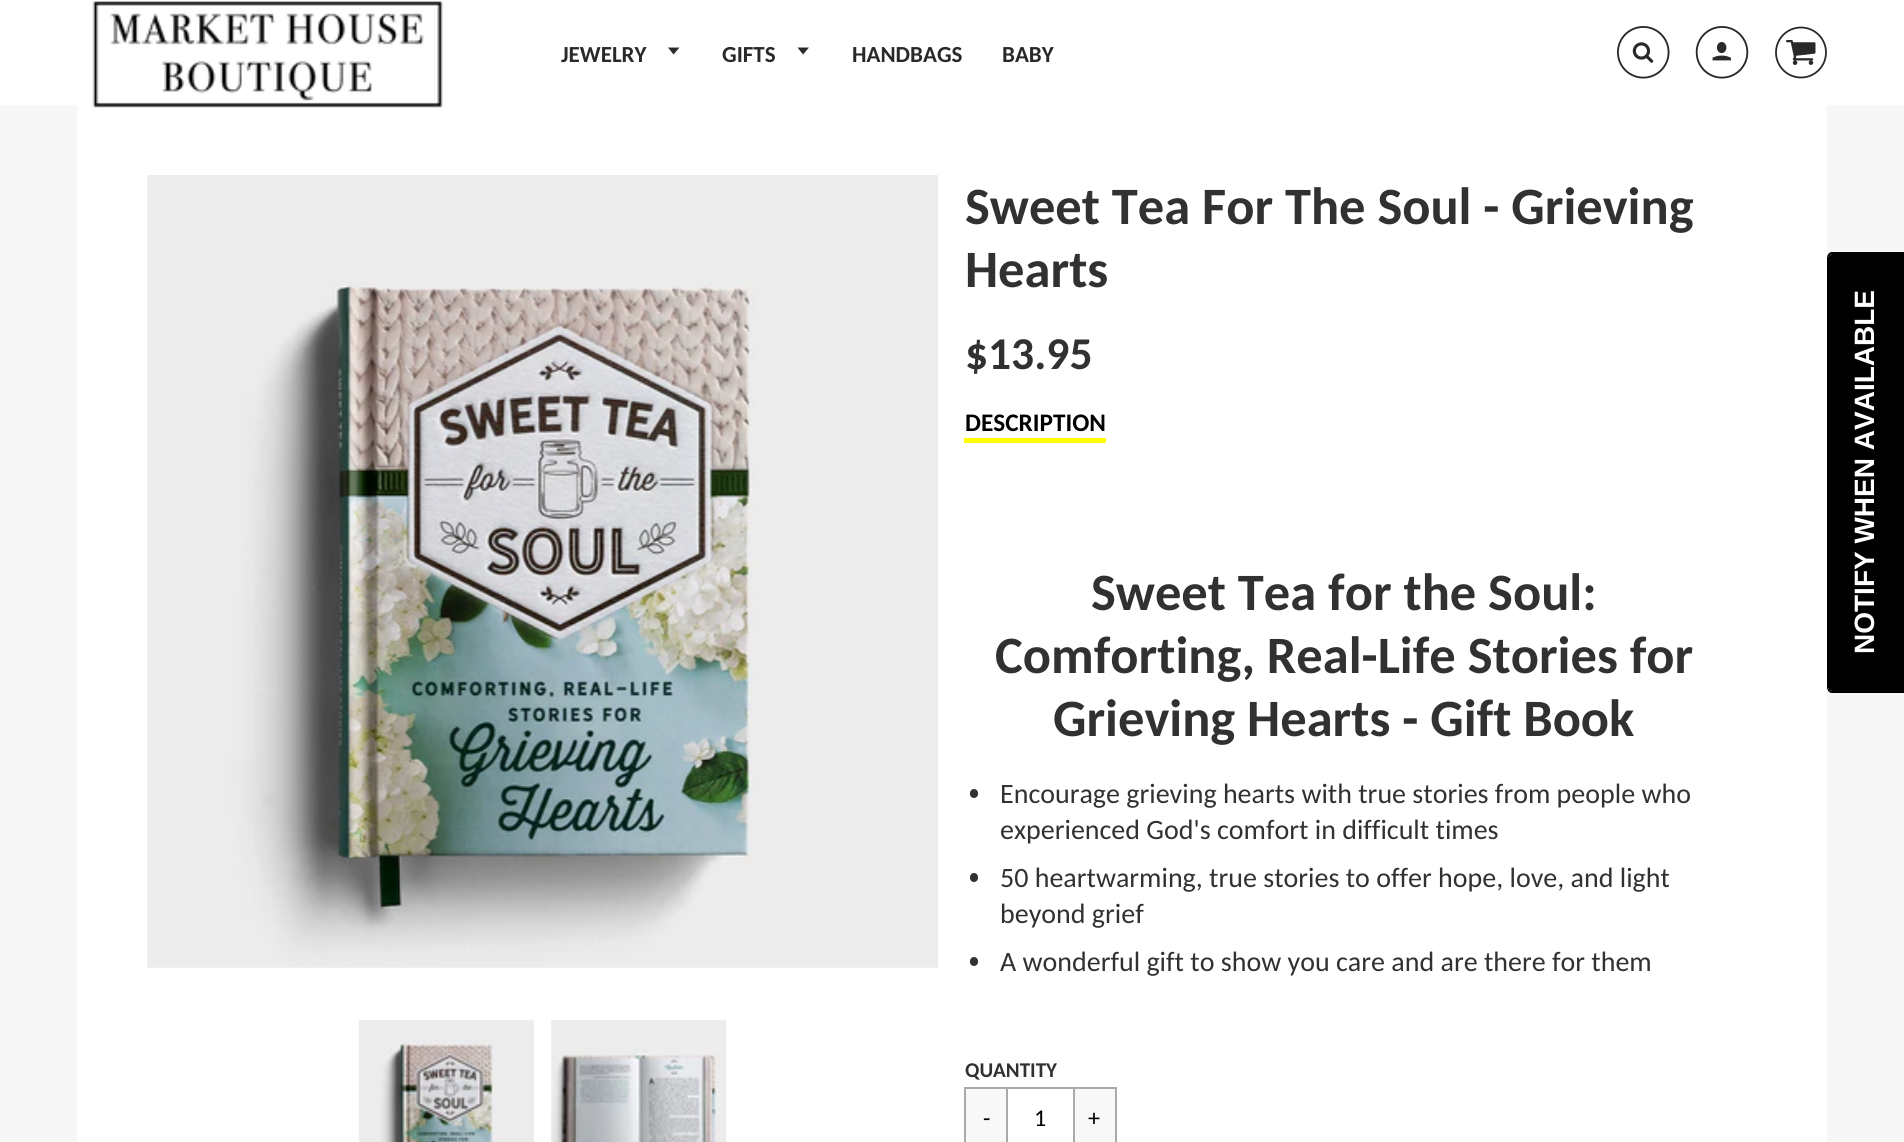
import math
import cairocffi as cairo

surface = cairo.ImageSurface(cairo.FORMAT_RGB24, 1904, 1142)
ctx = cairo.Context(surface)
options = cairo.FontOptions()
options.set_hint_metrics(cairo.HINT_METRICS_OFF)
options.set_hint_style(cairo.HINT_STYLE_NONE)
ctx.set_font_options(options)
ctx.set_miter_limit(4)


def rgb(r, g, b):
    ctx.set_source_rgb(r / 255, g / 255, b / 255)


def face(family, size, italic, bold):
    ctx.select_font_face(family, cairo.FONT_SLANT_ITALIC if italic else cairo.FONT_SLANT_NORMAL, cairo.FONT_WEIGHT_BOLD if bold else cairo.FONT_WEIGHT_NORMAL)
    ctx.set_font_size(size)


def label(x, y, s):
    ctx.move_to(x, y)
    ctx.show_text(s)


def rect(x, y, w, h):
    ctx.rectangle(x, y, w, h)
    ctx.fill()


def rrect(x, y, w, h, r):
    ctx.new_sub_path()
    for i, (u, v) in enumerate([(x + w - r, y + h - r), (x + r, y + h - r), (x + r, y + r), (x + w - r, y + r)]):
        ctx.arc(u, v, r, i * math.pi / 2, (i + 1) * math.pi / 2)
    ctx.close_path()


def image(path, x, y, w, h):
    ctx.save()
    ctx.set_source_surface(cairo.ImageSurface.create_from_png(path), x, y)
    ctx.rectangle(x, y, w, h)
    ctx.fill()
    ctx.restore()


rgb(247, 247, 247)
ctx.paint()
rgb(255, 255, 255)
rect(0, 0, 1904, 105)
rect(77, 105, 1750, 1037)
image('image0.png', 92, 1, 352, 107)
face('Carlito', 23, 0, 1)
rgb(41, 41, 41)
label(561, 62, 'JEWELRY')
ctx.new_path()
ctx.move_to(668, 47.5)
ctx.line_to(673.5, 54.5)
ctx.line_to(679.5, 47.5)
ctx.close_path()
ctx.fill()
label(722, 62, 'GIFTS')
ctx.new_path()
ctx.move_to(797.5, 47.5)
ctx.line_to(803, 54.5)
ctx.line_to(809, 47.5)
ctx.close_path()
ctx.fill()
label(852, 62, 'HANDBAGS')
label(1002, 62, 'BABY')
image('image1.png', 1617, 26, 53, 53)
image('image2.png', 1695, 26, 54, 53)
image('image3.png', 1775, 26, 52, 53)
image('image4.png', 147, 175, 791, 793)
image('image5.png', 358, 1020, 176, 122)
image('image6.png', 551, 1020, 176, 122)
face('Carlito', 52.5, 0, 1)
rgb(49, 49, 49)
label(965, 224, 'Sweet Tea For The Soul - Grieving')
label(965, 287, 'Hearts')
face('Carlito', 45.5, 0, 1)
label(965, 369, '$13.95')
rgb(255, 255, 0)
rect(964, 438, 142, 5)
face('Carlito', 25.25, 0, 1)
rgb(0, 0, 0)
label(965, 431, 'DESCRIPTION')
face('Carlito', 52.5, 0, 1)
rgb(49, 49, 49)
label(1091, 610, 'Sweet Tea for the Soul:')
label(995, 673, 'Comforting, Real-Life Stories for')
label(1053, 736, 'Grieving Hearts - Gift Book')
rrect(970, 789, 8, 9, 4)
ctx.fill()
face('Carlito', 28, 0, 0)
label(1000, 803, 'Encourage grieving hearts with true stories from people who')
label(1000, 839, 'experienced God\'s comfort in difficult times')
rrect(970, 873, 8, 9, 4)
ctx.fill()
label(1000, 887, '50 heartwarming, true stories to offer hope, love, and light')
label(1000, 923, 'beyond grief')
rrect(970, 957, 8, 9, 4)
ctx.fill()
label(1000, 971, 'A wonderful gift to show you care and are there for them')
face('Carlito', 21, 0, 1)
label(965, 1077, 'QUANTITY')
rgb(170, 170, 170)
rect(1006, 1087, 70, 2)
rgb(248, 248, 248)
ctx.rectangle(965, 1088, 42, 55)
ctx.fill_preserve()
rgb(170, 170, 170)
ctx.stroke()
face('Carlito', 24, 0, 0)
rgb(0, 0, 0)
label(983, 1126, '-')
label(1034, 1126, '1')
rgb(248, 248, 248)
ctx.rectangle(1074, 1088, 42, 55)
ctx.fill_preserve()
rgb(170, 170, 170)
ctx.stroke()
rgb(0, 0, 0)
label(1088, 1126, '+')
ctx.new_path()
ctx.move_to(1828, 687)
ctx.line_to(1828, 258)
ctx.curve_to(1828, 256, 1830, 254, 1832, 254)
ctx.line_to(1904, 254)
ctx.line_to(1904, 691)
ctx.line_to(1832, 691)
ctx.curve_to(1830, 691, 1828, 689, 1828, 687)
ctx.close_path()
ctx.fill()
ctx.set_fill_rule(cairo.FILL_RULE_EVEN_ODD)
ctx.new_path()
ctx.move_to(1827, 687)
ctx.line_to(1827, 258)
ctx.curve_to(1827, 255, 1829, 252, 1832, 252)
ctx.line_to(1904, 252)
ctx.line_to(1904, 693)
ctx.line_to(1832, 693)
ctx.curve_to(1829, 693, 1827, 690, 1827, 687)
ctx.close_path()
ctx.move_to(1828, 687)
ctx.line_to(1828, 258)
ctx.curve_to(1828, 256, 1830, 254, 1832, 254)
ctx.line_to(1904, 254)
ctx.line_to(1904, 691)
ctx.line_to(1832, 691)
ctx.curve_to(1830, 691, 1828, 689, 1828, 687)
ctx.close_path()
ctx.fill()
face('Liberation Sans', 28, 0, 1)
rgb(255, 255, 255)
ctx.save()
ctx.translate(1874, 654)
ctx.rotate(-90 * math.pi / 180)
label(0, 0, 'NOTIFY WHEN AVAILABLE')
ctx.restore()
surface.write_to_png('render.png')
